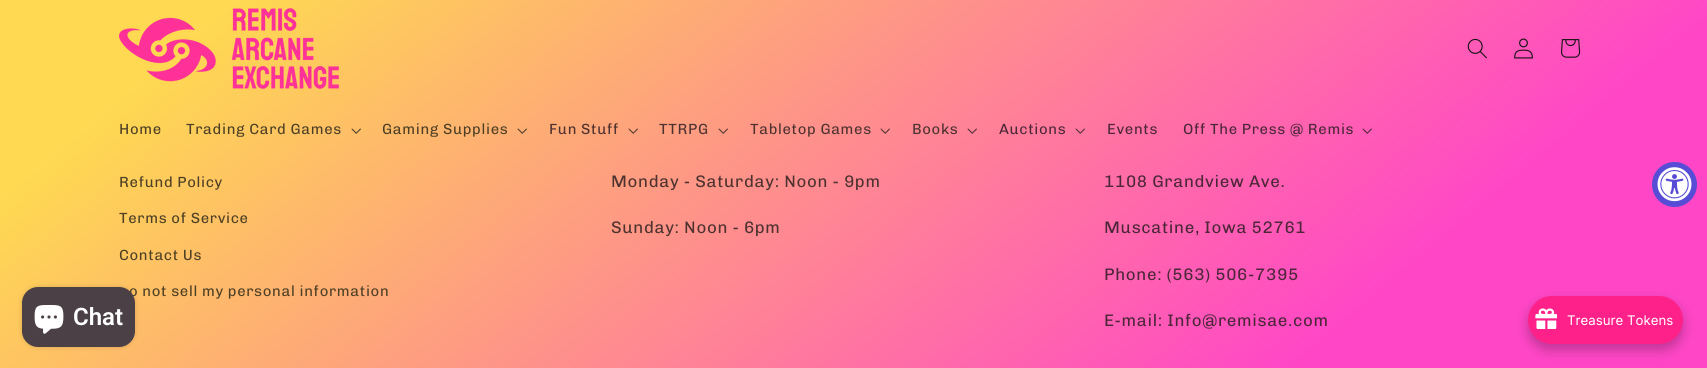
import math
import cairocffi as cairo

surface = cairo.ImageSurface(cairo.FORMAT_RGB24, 1707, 368)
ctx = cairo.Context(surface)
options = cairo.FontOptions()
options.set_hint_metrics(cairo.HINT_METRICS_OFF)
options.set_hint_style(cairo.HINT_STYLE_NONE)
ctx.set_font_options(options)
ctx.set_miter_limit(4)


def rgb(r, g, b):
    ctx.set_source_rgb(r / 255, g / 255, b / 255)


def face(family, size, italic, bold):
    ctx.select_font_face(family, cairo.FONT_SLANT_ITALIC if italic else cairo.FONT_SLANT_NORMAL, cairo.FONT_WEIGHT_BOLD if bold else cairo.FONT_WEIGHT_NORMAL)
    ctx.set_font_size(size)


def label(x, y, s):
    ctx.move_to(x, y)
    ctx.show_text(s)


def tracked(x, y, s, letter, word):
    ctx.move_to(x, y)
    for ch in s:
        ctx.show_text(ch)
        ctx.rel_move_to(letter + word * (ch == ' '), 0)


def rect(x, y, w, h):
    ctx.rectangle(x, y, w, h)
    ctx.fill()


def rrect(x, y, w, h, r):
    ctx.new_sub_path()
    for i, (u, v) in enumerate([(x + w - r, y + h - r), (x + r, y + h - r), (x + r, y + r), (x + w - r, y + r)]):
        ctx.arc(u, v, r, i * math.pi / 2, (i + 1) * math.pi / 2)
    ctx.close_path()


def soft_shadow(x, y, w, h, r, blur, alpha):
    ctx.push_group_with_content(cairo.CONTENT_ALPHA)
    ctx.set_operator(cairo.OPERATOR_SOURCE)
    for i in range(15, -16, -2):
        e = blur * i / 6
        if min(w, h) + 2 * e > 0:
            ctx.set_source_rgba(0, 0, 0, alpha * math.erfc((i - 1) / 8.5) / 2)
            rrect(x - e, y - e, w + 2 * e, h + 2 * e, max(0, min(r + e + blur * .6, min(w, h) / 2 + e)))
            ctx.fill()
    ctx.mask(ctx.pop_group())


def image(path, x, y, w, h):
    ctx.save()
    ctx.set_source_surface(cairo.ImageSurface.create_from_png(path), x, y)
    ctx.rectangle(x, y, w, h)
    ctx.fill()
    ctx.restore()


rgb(255, 255, 255)
ctx.paint()
gradient = cairo.LinearGradient(410, -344, 1297, 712)
gradient.add_color_stop_rgba(0.11, 0.996, 0.851, 0.318, 1)
gradient.add_color_stop_rgba(0.81, 1, 0.275, 0.78, 1)
ctx.set_source(gradient)
rect(0, 0, 1707, 156)
image('image0.png', 119, 8, 220, 81)
image('image1.png', 1467, 38, 20, 21)
image('image2.png', 1514, 38, 19, 21)
image('image3.png', 1561, 39, 20, 19)
face('Chivo', 14.75, 0, 0)
rgb(77, 64, 37)
tracked(119, 134, 'Home', 0.65, 0)
tracked(186, 134, 'Trading Card Games', 0.65, 0)
image('image4.png', 351, 128, 10, 6)
tracked(382, 134, 'Gaming Supplies', 0.65, 0)
image('image5.png', 517, 128, 10, 6)
rgb(77, 50, 48)
tracked(549, 134, 'Fun Stuff', 0.65, 0)
image('image6.png', 628, 128, 10, 6)
tracked(659, 134, 'TTRPG', 0.65, 0)
image('image7.png', 718, 128, 10, 6)
tracked(750, 134, 'Tabletop Games', 0.65, 0)
image('image8.png', 880, 128, 10, 6)
tracked(912, 134, 'Books', 0.65, 0)
image('image9.png', 967, 128, 10, 6)
rgb(77, 39, 57)
tracked(999, 134, 'Auctions', 0.65, 0)
image('image10.png', 1075, 128, 10, 6)
tracked(1107, 134, 'Events', 0.65, 0)
tracked(1183, 134, 'Off The Press @ Remis', 0.65, 0)
image('image11.png', 1362, 128, 10, 6)
gradient = cairo.LinearGradient(410, -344, 1297, 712)
gradient.add_color_stop_rgba(0.11, 0.996, 0.851, 0.318, 1)
gradient.add_color_stop_rgba(0.81, 1, 0.275, 0.78, 1)
ctx.set_source(gradient)
rect(0, 156, 1707, 212)
rgb(0, 0, 0)
soft_shadow(22, 287, 113, 60, 16, 2.5, 0.15)
rgb(77, 64, 37)
tracked(129, 296, 'o not sell my personal information', 0.65, 0)
rgb(75, 64, 69)
rrect(22, 287, 113, 60, 16)
ctx.fill()
image('image12.png', 34, 305, 30, 29)
face('Roboto SemiBold', 24, 0, 0)
rgb(255, 255, 255)
label(73, 325, 'Chat')
face('Chivo', 14.75, 0, 0)
rgb(77, 64, 37)
tracked(119, 187, 'Refund Policy', 0.65, 0)
tracked(119, 223, 'Terms of Service', 0.65, 0)
tracked(119, 260, 'Contact Us', 0.65, 0)
face('Chivo', 16.75, 0, 0)
rgb(77, 50, 48)
tracked(611, 187, 'Monday - Saturday: Noon - 9pm', 0.65, 0)
tracked(611, 233, 'Sunday: Noon - 6pm', 0.65, 0)
rgb(77, 39, 57)
tracked(1104, 187, '1108 Grandview Ave.', 0.65, 0)
tracked(1104, 233, 'Muscatine, Iowa 52761', 0.65, 0)
tracked(1104, 280, 'Phone: (563) 506-7395', 0.65, 0)
tracked(1104, 326, 'E-mail: Info@remisae.com', 0.65, 0)
rgb(0, 0, 0)
soft_shadow(1528, 302, 155, 48, 24, 6, 0.25)
rgb(254, 33, 137)
rrect(1528, 296, 155, 48, 24)
ctx.fill()
image('image13.png', 1535, 308, 22, 21)
face('Inter', 13.25, 0, 0)
rgb(255, 255, 255)
label(1567, 325, 'Treasure Tokens')
rgb(87, 76, 213)
ctx.new_path()
ctx.arc(1674.5, 184.5, 22.5, 0, 2 * math.pi)
ctx.fill()
image('image14.png', 1657, 167, 35, 35)
surface.write_to_png('render.png')
